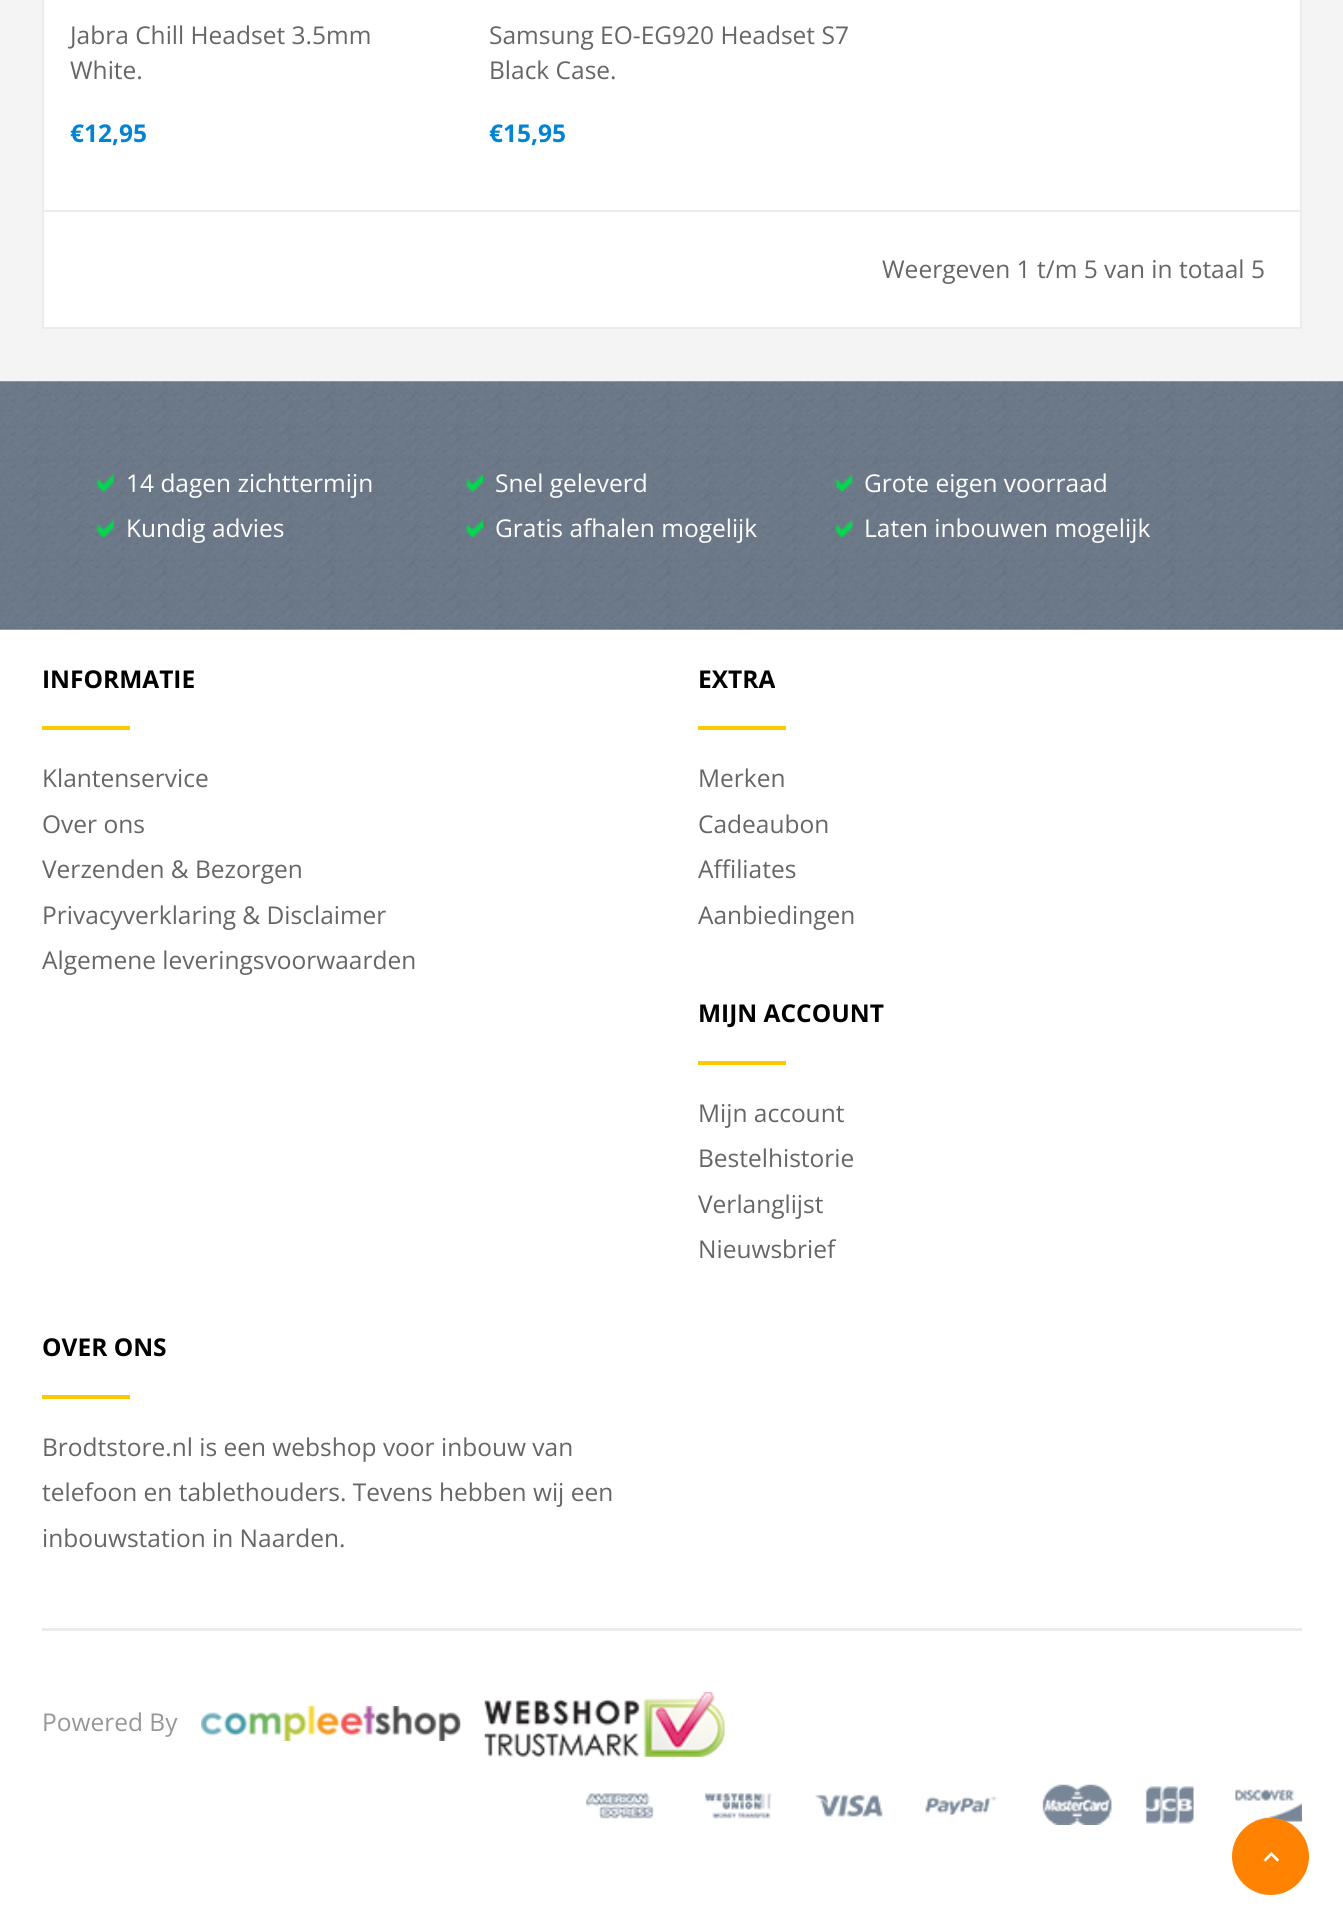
import math
import cairocffi as cairo

surface = cairo.ImageSurface(cairo.FORMAT_RGB24, 1343, 1930)
ctx = cairo.Context(surface)
options = cairo.FontOptions()
options.set_hint_metrics(cairo.HINT_METRICS_OFF)
options.set_hint_style(cairo.HINT_STYLE_NONE)
ctx.set_font_options(options)
ctx.set_miter_limit(4)


def rgb(r, g, b):
    ctx.set_source_rgb(r / 255, g / 255, b / 255)


def face(family, size, italic, bold):
    ctx.select_font_face(family, cairo.FONT_SLANT_ITALIC if italic else cairo.FONT_SLANT_NORMAL, cairo.FONT_WEIGHT_BOLD if bold else cairo.FONT_WEIGHT_NORMAL)
    ctx.set_font_size(size)


def label(x, y, s):
    ctx.move_to(x, y)
    ctx.show_text(s)


def rect(x, y, w, h):
    ctx.rectangle(x, y, w, h)
    ctx.fill()


def image(path, x, y, w, h):
    ctx.save()
    ctx.set_source_surface(cairo.ImageSurface.create_from_png(path), x, y)
    ctx.rectangle(x, y, w, h)
    ctx.fill()
    ctx.restore()


rgb(244, 244, 244)
ctx.paint()
rgb(255, 255, 255)
ctx.rectangle(43, -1, 1258, 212)
ctx.fill_preserve()
rgb(235, 235, 235)
ctx.stroke()
face('Open Sans', 24.5, 0, 0)
rgb(102, 102, 102)
label(70, 44, 'Jabra Chill Headset 3.5mm')
label(70, 79, 'White.')
face('Open Sans', 24.5, 0, 1)
rgb(1, 132, 211)
label(70, 142, '€12,95')
face('Open Sans', 24.5, 0, 0)
rgb(102, 102, 102)
label(489, 44, 'Samsung EO-EG920 Headset S7')
label(489, 79, 'Black Case.')
face('Open Sans', 24.5, 0, 1)
rgb(1, 132, 211)
label(489, 142, '€15,95')
rgb(255, 255, 255)
rect(44, 212, 1256, 115)
rgb(235, 235, 235)
rect(1300, 212, 2, 117)
rect(42, 327, 1260, 2)
rect(42, 212, 2, 117)
face('Open Sans', 24.5, 0, 0)
rgb(102, 102, 102)
label(882, 278, 'Weergeven 1 t/m 5 van in totaal 5')
rgb(255, 255, 255)
rect(0, 629, 1343, 1301)
image('image0.png', 0, 381, 1343, 249)
image('image1.png', 96, 474, 18, 18)
label(126, 492, '14 dagen zichttermijn')
image('image2.png', 465, 474, 18, 18)
label(495, 492, 'Snel geleverd')
image('image3.png', 834, 474, 19, 18)
label(864, 492, 'Grote eigen voorraad')
image('image4.png', 96, 519, 18, 18)
label(126, 537, 'Kundig advies')
image('image5.png', 465, 519, 18, 18)
label(495, 537, 'Gratis afhalen mogelijk')
image('image6.png', 834, 519, 19, 18)
label(864, 537, 'Laten inbouwen mogelijk')
rgb(235, 235, 235)
rect(42, 1628, 1260, 3)
face('Open Sans', 24.5, 0, 1)
rgb(0, 0, 0)
label(42, 688, 'INFORMATIE')
rgb(250, 201, 0)
rect(42, 726, 88, 4)
face('Open Sans', 24.5, 0, 0)
rgb(102, 102, 102)
label(42, 787, 'Klantenservice')
label(42, 833, 'Over ons')
label(42, 878, 'Verzenden & Bezorgen')
label(42, 924, 'Privacyverklaring & Disclaimer')
label(42, 969, 'Algemene leveringsvoorwaarden')
face('Open Sans', 24.5, 0, 1)
rgb(0, 0, 0)
label(698, 688, 'EXTRA')
rgb(250, 201, 0)
rect(698, 726, 88, 4)
face('Open Sans', 24.5, 0, 0)
rgb(102, 102, 102)
label(698, 787, 'Merken')
label(698, 833, 'Cadeaubon')
label(698, 878, 'Affiliates')
label(698, 924, 'Aanbiedingen')
face('Open Sans', 24.5, 0, 1)
rgb(0, 0, 0)
label(698, 1022, 'MIJN ACCOUNT')
rgb(250, 201, 0)
rect(698, 1061, 88, 4)
face('Open Sans', 24.5, 0, 0)
rgb(102, 102, 102)
label(698, 1122, 'Mijn account')
label(698, 1167, 'Bestelhistorie')
label(698, 1213, 'Verlanglijst')
label(698, 1258, 'Nieuwsbrief')
face('Open Sans', 24.5, 0, 1)
rgb(0, 0, 0)
label(42, 1356, 'OVER ONS')
rgb(250, 201, 0)
rect(42, 1395, 88, 4)
face('Open Sans', 24.5, 0, 0)
rgb(102, 102, 102)
label(42, 1456, 'Brodtstore.nl is een webshop voor inbouw van')
label(42, 1501, 'telefoon en tablethouders. Tevens hebben wij een')
label(42, 1547, 'inbouwstation in Naarden.')
rgb(151, 151, 151)
label(42, 1731, 'Powered By')
image('image7.png', 201, 1706, 260, 35)
image('image8.png', 484, 1692, 241, 65)
image('image9.png', 586, 1784, 716, 41)
rgb(255, 130, 0)
ctx.arc(1270.5, 1856.5, 38.5, 0, 2 * math.pi)
ctx.fill()
image('image10.png', 1263, 1852, 17, 10)
surface.write_to_png('render.png')
